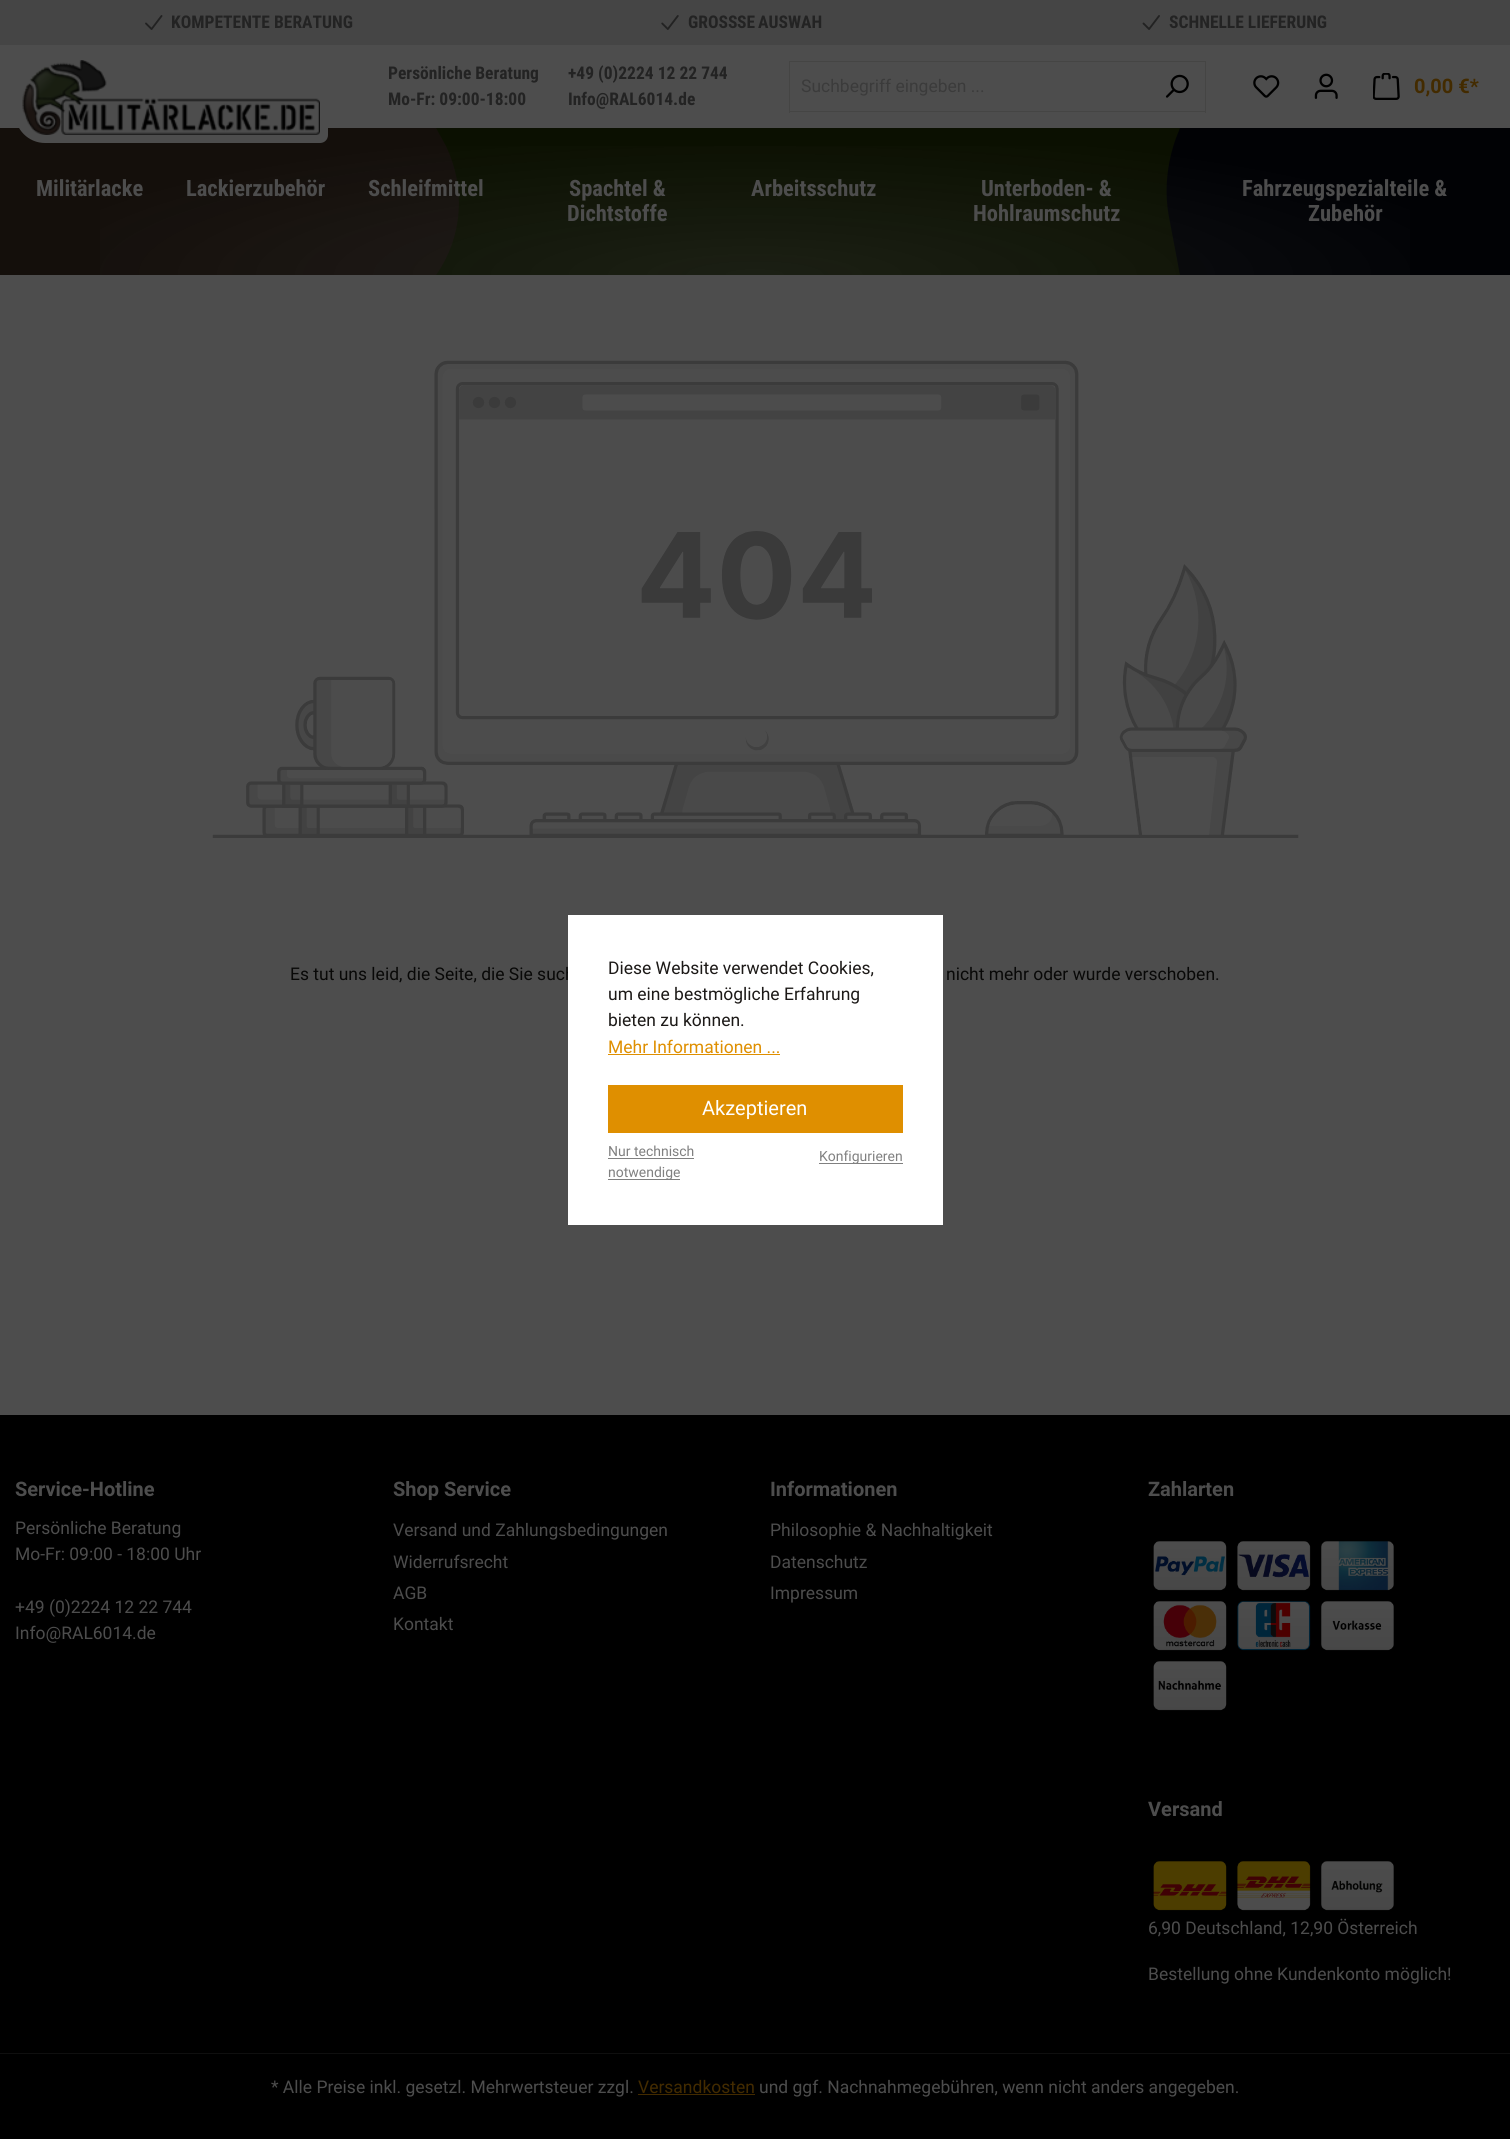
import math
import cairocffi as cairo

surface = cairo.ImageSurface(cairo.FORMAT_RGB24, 1510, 2139)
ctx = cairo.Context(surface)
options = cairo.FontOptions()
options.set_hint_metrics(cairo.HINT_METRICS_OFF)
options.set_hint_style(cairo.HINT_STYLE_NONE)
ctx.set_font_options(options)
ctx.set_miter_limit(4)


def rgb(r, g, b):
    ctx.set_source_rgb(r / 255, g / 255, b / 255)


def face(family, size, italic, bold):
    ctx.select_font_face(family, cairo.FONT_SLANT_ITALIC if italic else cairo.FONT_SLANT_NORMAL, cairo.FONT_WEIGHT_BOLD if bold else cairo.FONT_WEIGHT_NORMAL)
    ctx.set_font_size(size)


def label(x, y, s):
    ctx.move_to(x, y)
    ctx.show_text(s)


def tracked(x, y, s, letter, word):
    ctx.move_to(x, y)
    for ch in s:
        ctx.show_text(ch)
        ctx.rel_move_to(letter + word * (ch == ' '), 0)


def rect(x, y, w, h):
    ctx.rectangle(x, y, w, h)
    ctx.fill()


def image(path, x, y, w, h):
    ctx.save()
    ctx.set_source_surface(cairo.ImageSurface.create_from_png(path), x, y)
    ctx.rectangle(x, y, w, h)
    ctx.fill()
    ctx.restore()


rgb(77, 77, 77)
ctx.paint()
rgb(69, 69, 69)
rect(0, 0, 1510, 45)
image('image0.png', 145, 15, 18, 15)
face('Roboto Condensed', 17.5, 0, 1)
rgb(35, 35, 35)
label(171, 28, 'KOMPETENTE BERATUNG')
image('image1.png', 661, 15, 18, 15)
label(688, 28, 'GROSS')
tracked(737, 28, 'SE AUSWAH', 0, -1)
image('image2.png', 1142, 15, 18, 15)
label(1169, 28, 'SCHNELLE LIEFERUNG')
rgb(11, 16, 1)
rect(436, 128, 744, 147)
rgb(20, 15, 11)
ctx.new_path()
ctx.move_to(0, 128)
ctx.line_to(436, 128)
ctx.line_to(446, 146)
ctx.curve_to(466, 188, 463, 237, 436, 275)
ctx.line_to(0, 275)
ctx.close_path()
ctx.fill()
rgb(77, 77, 77)
ctx.new_path()
ctx.move_to(23, 53)
ctx.line_to(320, 53)
ctx.curve_to(324.5, 53, 328, 56.5, 328, 61)
ctx.line_to(328, 135)
ctx.curve_to(328, 139.5, 324.5, 143, 320, 143)
ctx.line_to(45, 143)
ctx.curve_to(28.5, 143, 15, 129.5, 15, 113)
ctx.line_to(15, 61)
ctx.curve_to(15, 56.5, 18.5, 53, 23, 53)
ctx.close_path()
ctx.fill()
image('image3.png', 22, 60, 298, 75)
rgb(35, 35, 35)
label(388, 79, 'Persönliche Beratung')
label(388, 105, 'Mo-Fr: 09:00-18:00')
label(568, 79, '+49 (0)2224 12 22 744')
label(568, 105, 'Info@RAL6014.de')
rgb(69, 69, 68)
rect(789, 61, 417, 1)
rect(789, 111, 360, 1)
rect(789, 61, 1, 52)
face('Roboto', 17.5, 0, 0)
rgb(59, 59, 59)
label(801, 92, 'Suchbegriff eingeben ...')
rgb(69, 69, 68)
rect(1205, 61, 1, 52)
rect(1148, 111, 58, 1)
image('image4.png', 1165, 74, 24, 24)
image('image5.png', 1253, 75, 27, 23)
image('image6.png', 1314, 73, 24, 26)
image('image7.png', 1373, 73, 27, 27)
face('Roboto', 20, 0, 1)
rgb(67, 43, 0)
label(1414, 93, '0,00 €*')
rgb(1, 2, 5)
ctx.new_path()
ctx.move_to(1180, 128)
ctx.line_to(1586, 128)
ctx.line_to(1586, 275)
ctx.line_to(1180, 275)
ctx.line_to(1169, 217)
ctx.curve_to(1164, 191, 1167, 163, 1176, 138)
ctx.close_path()
ctx.fill()
gradient = cairo.RadialGradient(0, 0, 0, 0, 0, 1)
gradient.set_matrix(cairo.Matrix(1 / 755, 0, 0, 1 / 148, -1 * 755 / 755, -1 * 275 / 148))
gradient.add_color_stop_rgba(0, 0.302, 0.302, 0.302, 0.25)
gradient.add_color_stop_rgba(1, 0.302, 0.302, 0.302, 0)
ctx.set_source(gradient)
rect(100, 146, 1310, 129)
face('Roboto Condensed', 22.5, 0, 1)
rgb(77, 77, 77)
label(36, 196, 'Militärlacke')
label(186, 196, 'Lackierzubehör')
label(368, 196, 'Schleifmittel')
label(569, 196, 'Spachtel &')
label(567, 221, 'Dichtstoffe')
label(751, 196, 'Arbeitsschutz')
label(981, 196, 'Unterboden- &')
label(973, 221, 'Hohlraumschutz')
label(1242, 196, 'Fahrzeugspezialteile &')
label(1308, 221, 'Zubehör')
face('Roboto', 17.5, 0, 0)
rgb(8, 8, 7)
label(290, 980, 'Es tut uns leid, die Seite, die Sie such')
rgb(255, 255, 255)
rect(568, 915, 375, 310)
rgb(28, 25, 23)
label(608, 974, 'Diese Website verwendet Cookies,')
label(608, 1000, 'um eine bestmögliche Erfahrung')
label(608, 1026, 'bieten zu können.')
rgb(223, 143, 0)
label(608, 1053, 'Mehr Informationen ...')
rect(608, 1054, 172, 1)
rect(608, 1085, 295, 48)
face('Roboto', 20, 0, 0)
rgb(255, 255, 255)
label(702, 1115, 'Akzeptieren')
face('Roboto', 14, 0, 0)
rgb(128, 128, 128)
label(608, 1156, 'Nur technisch')
rect(608, 1158, 86, 1)
rect(608, 1179, 72, 1)
label(608, 1177, 'notwendige')
rect(819, 1163, 84, 1)
label(819, 1161, 'Konfigurieren')
image('image8.png', 212, 360, 1087, 478)
face('Roboto', 17.5, 0, 0)
rgb(8, 8, 7)
label(946, 980, 'nicht mehr oder wurde verschoben.')
rgb(0, 0, 0)
rect(0, 1415, 1510, 724)
face('Roboto', 20, 0, 1)
rgb(77, 77, 77)
label(15, 1496, 'Service-Hotline')
face('Roboto', 17.5, 0, 0)
label(15, 1534, 'Persönliche Beratung')
label(15, 1560, 'Mo-Fr: 09:00 - 18:00 Uhr')
label(15, 1613, '+49 (0)2224 12 22 744')
label(15, 1639, 'Info@RAL6014.de')
face('Roboto', 20, 0, 1)
label(393, 1496, 'Shop Service')
face('Roboto', 17.5, 0, 0)
label(393, 1536, 'Versand und Zahlungsbedingungen')
label(393, 1568, 'Widerrufsrecht')
label(393, 1599, 'AGB')
label(393, 1630, 'Kontakt')
face('Roboto', 20, 0, 1)
label(770, 1496, 'Informationen')
face('Roboto', 17.5, 0, 0)
label(770, 1536, 'Philosophie & Nachhaltigkeit')
label(770, 1568, 'Datenschutz')
label(770, 1599, 'Impressum')
face('Roboto', 20, 0, 1)
label(1148, 1496, 'Zahlarten')
image('image9.png', 1153, 1541, 74, 50)
image('image10.png', 1237, 1541, 74, 50)
image('image11.png', 1321, 1541, 73, 50)
image('image12.png', 1153, 1601, 74, 50)
image('image13.png', 1237, 1601, 74, 50)
image('image14.png', 1321, 1601, 73, 50)
image('image15.png', 1153, 1661, 74, 50)
label(1148, 1816, 'Versand')
image('image16.png', 1153, 1861, 74, 50)
image('image17.png', 1237, 1861, 74, 50)
image('image18.png', 1321, 1861, 73, 50)
face('Roboto', 17.5, 0, 0)
label(1148, 1934, '6,90 Deutschland, 12,90 Österreich')
label(1148, 1980, 'Bestellung ohne Kundenkonto möglich!')
rgb(15, 15, 15)
rect(0, 2053, 1510, 1)
rgb(77, 77, 77)
label(271, 2093, '* Alle Preise inkl. gesetzl. Mehrwertsteuer zzgl.')
rgb(67, 43, 0)
label(638, 2093, 'Versandkosten')
rect(638, 2094, 117, 1)
rgb(77, 77, 77)
label(759, 2093, 'und ggf. Nachnahmegebühren, wenn nicht anders angegeben.')
surface.write_to_png('render.png')
